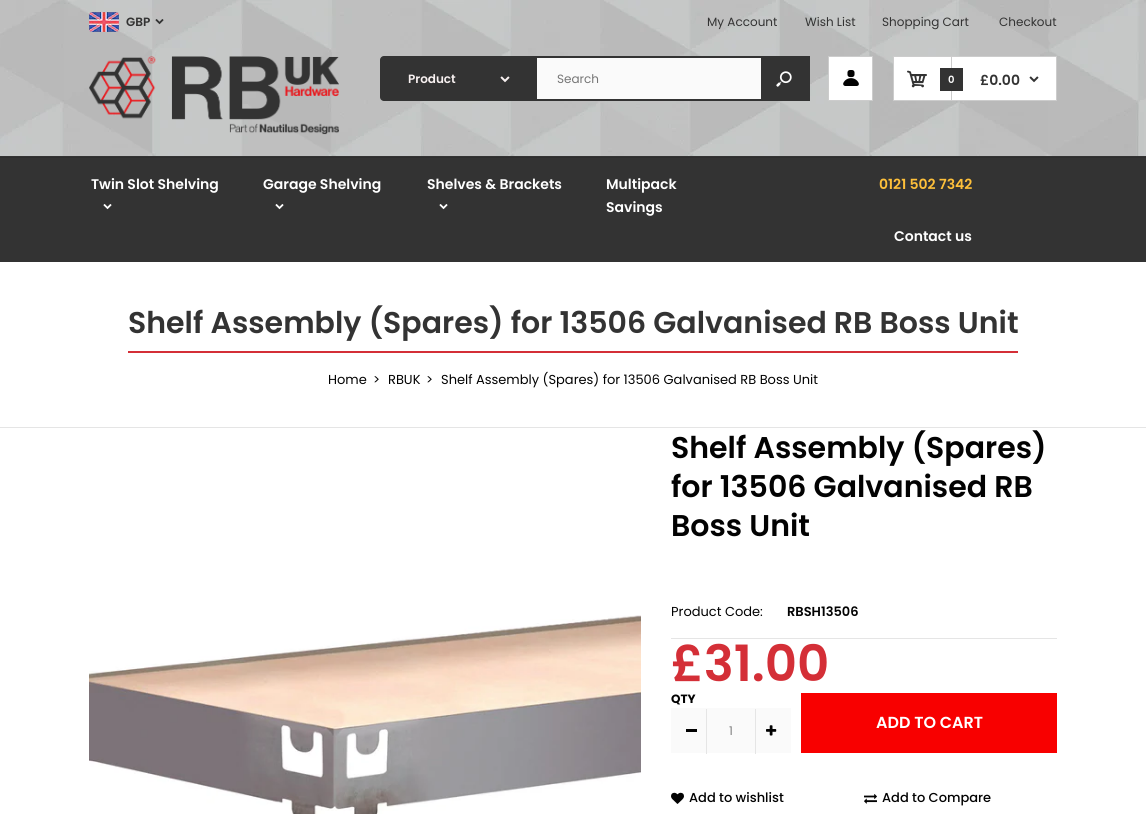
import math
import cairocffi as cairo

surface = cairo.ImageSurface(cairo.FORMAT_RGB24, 1146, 814)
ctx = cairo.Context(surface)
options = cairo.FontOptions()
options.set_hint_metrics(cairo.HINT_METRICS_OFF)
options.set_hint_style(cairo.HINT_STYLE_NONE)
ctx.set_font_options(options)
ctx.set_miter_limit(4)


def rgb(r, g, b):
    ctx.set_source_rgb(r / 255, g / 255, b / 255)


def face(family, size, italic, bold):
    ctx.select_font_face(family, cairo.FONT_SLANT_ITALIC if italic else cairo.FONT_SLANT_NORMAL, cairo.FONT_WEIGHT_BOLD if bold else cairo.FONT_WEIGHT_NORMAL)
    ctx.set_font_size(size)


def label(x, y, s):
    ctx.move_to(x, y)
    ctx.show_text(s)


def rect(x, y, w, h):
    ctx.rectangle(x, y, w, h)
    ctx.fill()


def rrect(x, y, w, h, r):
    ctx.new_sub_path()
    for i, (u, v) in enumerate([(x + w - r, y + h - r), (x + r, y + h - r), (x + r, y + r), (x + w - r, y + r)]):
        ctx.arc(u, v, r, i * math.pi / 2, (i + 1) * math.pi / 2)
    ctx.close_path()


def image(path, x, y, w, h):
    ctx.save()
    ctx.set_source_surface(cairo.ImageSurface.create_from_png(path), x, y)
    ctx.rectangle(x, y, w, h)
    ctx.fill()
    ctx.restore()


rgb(255, 255, 255)
ctx.paint()
rgb(51, 51, 51)
rect(0, 156, 1146, 106)
image('image0.png', 0, 0, 1146, 156)
image('image1.png', 89, 12, 30, 20)
face('Poppins SemiBold', 12, 0, 0)
label(126, 26, 'GBP')
image('image2.png', 155, 19, 9, 6)
face('Poppins', 12, 0, 0)
label(707, 26, 'My Account')
label(805, 26, 'Wish List')
label(882, 26, 'Shopping Cart')
label(999, 26, 'Checkout')
image('image3.png', 89, 56, 250, 79)
rrect(380, 56, 430, 45, 4)
ctx.fill()
face('Poppins SemiBold', 12, 0, 0)
rgb(248, 241, 241)
label(408, 83, 'Product')
image('image4.png', 500, 76, 10, 7)
rgb(250, 250, 250)
rect(537, 58, 224, 41)
face('Poppins', 12, 0, 0)
rgb(117, 117, 117)
label(557, 83, 'Search')
rgb(51, 51, 51)
rect(806, 56, 4, 45)
image('image5.png', 776, 71, 16, 16)
rgb(255, 255, 255)
ctx.rectangle(828.5, 56.5, 44, 44)
ctx.fill_preserve()
rgb(204, 204, 204)
ctx.set_line_width(1)
ctx.stroke()
image('image6.png', 843, 70, 16, 16)
rgb(255, 255, 255)
ctx.rectangle(893.5, 56.5, 163, 44)
ctx.fill_preserve()
rgb(204, 204, 204)
ctx.stroke()
image('image7.png', 907, 70, 20, 18)
rect(951, 57, 1, 43)
rgb(51, 51, 51)
rect(940, 68, 23, 23)
face('Poppins SemiBold', 10, 0, 0)
rgb(255, 255, 255)
label(948, 83, '0')
face('Poppins SemiBold', 14, 0, 0)
rgb(51, 51, 51)
label(980, 85, '£0.00')
image('image8.png', 1029, 76, 10, 7)
rgb(46, 46, 46)
rect(0, 157, 1146, 1)
rgb(255, 255, 255)
label(91, 189, 'Twin Slot Shelving')
image('image9.png', 103, 204, 9, 6)
label(263, 189, 'Garage Shelving')
image('image9.png', 275, 204, 9, 6)
label(427, 189, 'Shelves & Brackets')
image('image9.png', 439, 204, 9, 6)
label(606, 189, 'Multipack')
label(606, 212, 'Savings')
rgb(254, 192, 58)
label(879, 189, '0121 502 7342')
rgb(255, 255, 255)
label(894, 241, 'Contact us')
rgb(229, 229, 229)
rect(0, 427, 1146, 1)
rgb(212, 47, 55)
rect(128, 351, 890, 2)
face('Poppins SemiBold', 30, 0, 0)
rgb(51, 51, 51)
label(128, 333, 'Shelf Assembly (Spares) for 13506 Galvanised RB Boss Unit')
face('Poppins', 13, 0, 0)
rgb(2, 2, 2)
label(328, 384, 'Home')
label(373, 384, '>')
label(388, 384, 'RBUK')
label(426, 384, '>')
label(441, 384, 'Shelf Assembly (Spares) for 13506 Galvanised RB Boss Unit')
image('image10.png', 89, 615, 552, 199)
face('Poppins SemiBold', 30, 0, 0)
label(671, 458, 'Shelf Assembly (Spares)')
label(671, 497, 'for 13506 Galvanised RB')
label(671, 536, 'Boss Unit')
rgb(229, 229, 229)
rect(671, 638, 386, 1)
face('Poppins', 13, 0, 0)
rgb(2, 2, 2)
label(671, 616, 'Product Code:')
face('Poppins SemiBold', 13, 0, 0)
label(787, 616, 'RBSH13506')
face('Poppins SemiBold', 50, 0, 0)
rgb(212, 47, 55)
label(671, 681, '£31.00')
face('Poppins', 12, 0, 1)
rgb(2, 2, 2)
label(671, 703, 'QTY')
rgb(250, 250, 250)
rect(671, 708, 120, 45)
rgb(229, 229, 229)
rect(706, 709, 1, 45)
rgb(2, 2, 2)
rect(686, 729, 11, 3)
face('Poppins', 12, 0, 0)
rgb(128, 128, 128)
label(729, 735, '1')
rgb(229, 229, 229)
rect(755, 709, 1, 45)
image('image11.png', 766, 725, 11, 11)
rgb(248, 0, 0)
rect(801, 693, 256, 60)
face('Poppins SemiBold', 16, 0, 0)
rgb(255, 255, 255)
label(876, 728, 'ADD TO CART')
image('image12.png', 671, 792, 13, 12)
face('Poppins Medium', 13, 0, 0)
rgb(2, 2, 2)
label(689, 802, 'Add to wishlist')
image('image13.png', 864, 794, 13, 10)
label(882, 802, 'Add to Compare')
surface.write_to_png('render.png')
